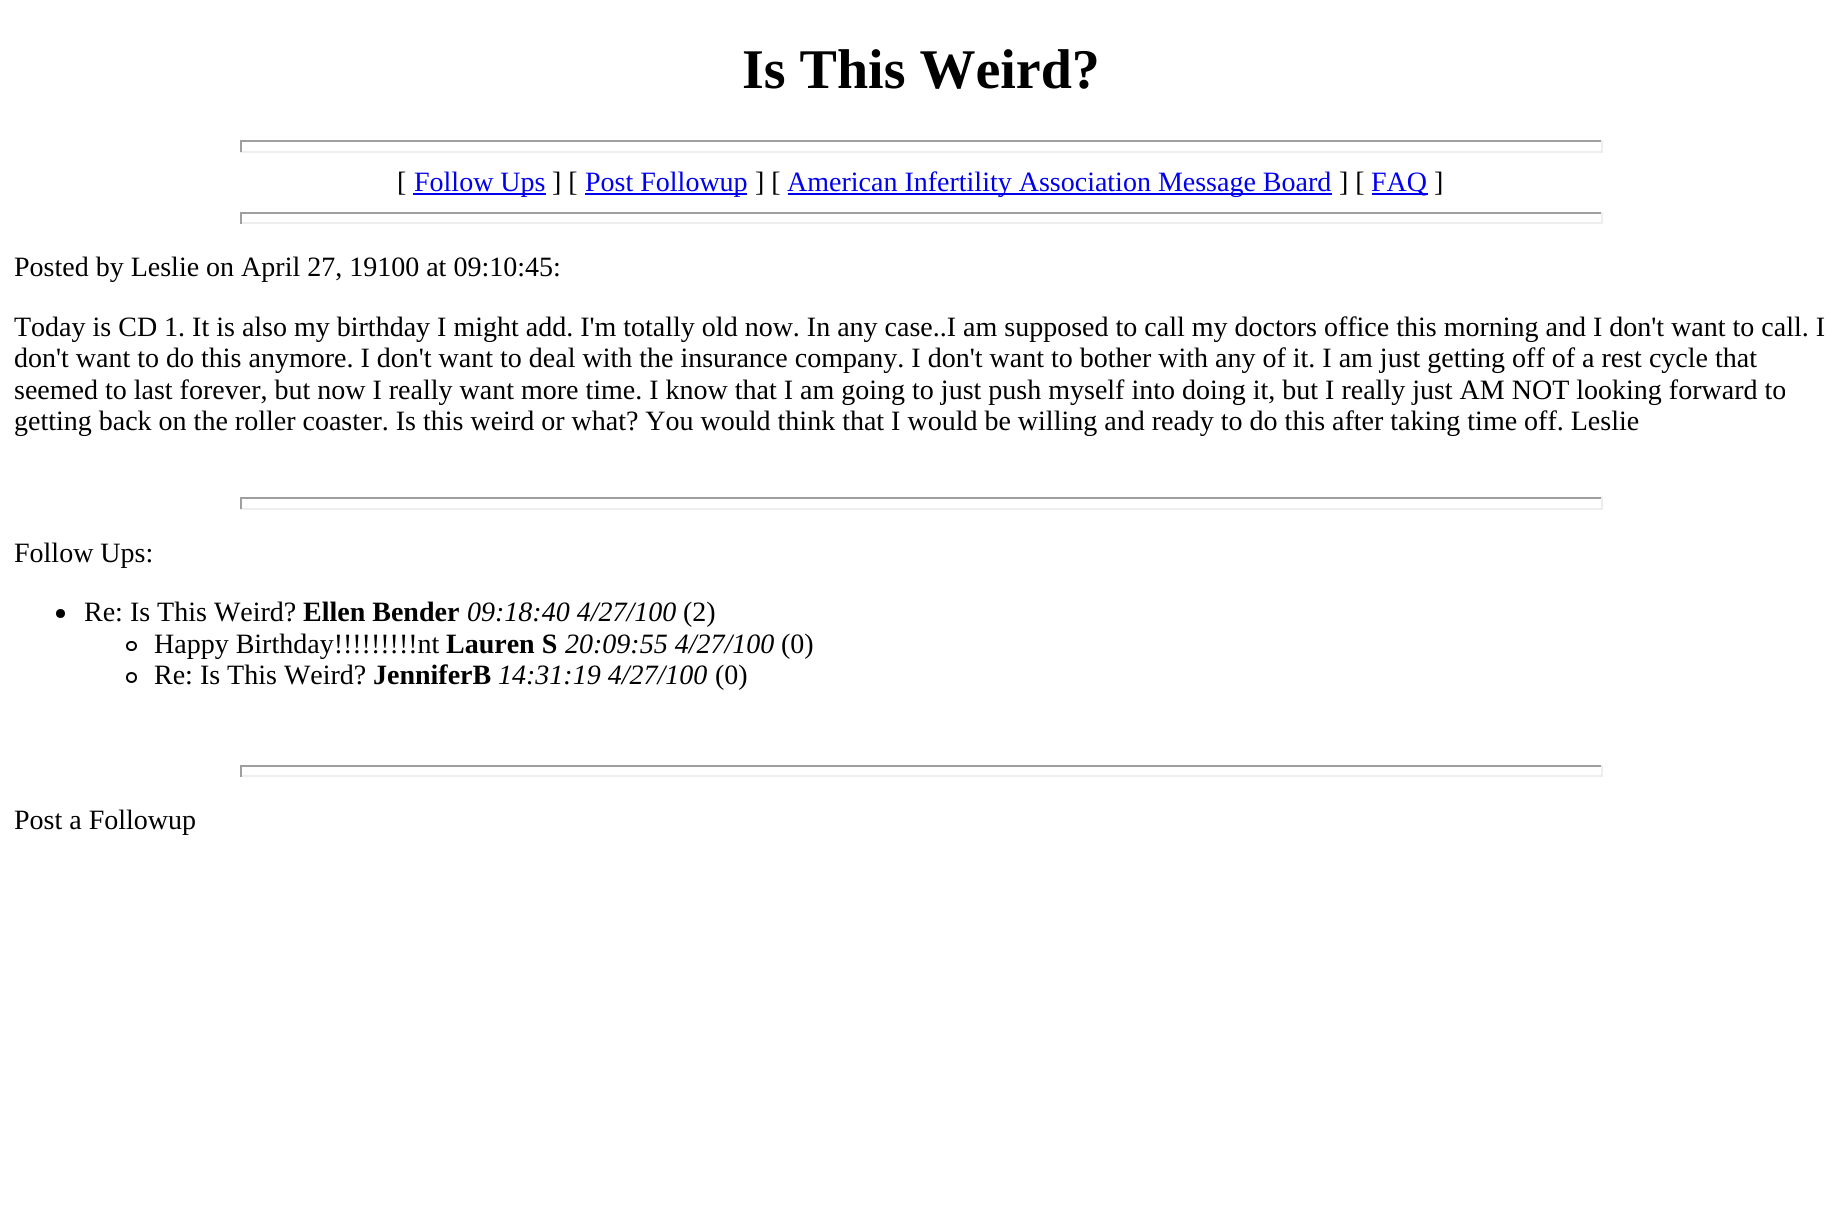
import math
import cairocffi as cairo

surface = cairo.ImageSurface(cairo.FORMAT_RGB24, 1841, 1231)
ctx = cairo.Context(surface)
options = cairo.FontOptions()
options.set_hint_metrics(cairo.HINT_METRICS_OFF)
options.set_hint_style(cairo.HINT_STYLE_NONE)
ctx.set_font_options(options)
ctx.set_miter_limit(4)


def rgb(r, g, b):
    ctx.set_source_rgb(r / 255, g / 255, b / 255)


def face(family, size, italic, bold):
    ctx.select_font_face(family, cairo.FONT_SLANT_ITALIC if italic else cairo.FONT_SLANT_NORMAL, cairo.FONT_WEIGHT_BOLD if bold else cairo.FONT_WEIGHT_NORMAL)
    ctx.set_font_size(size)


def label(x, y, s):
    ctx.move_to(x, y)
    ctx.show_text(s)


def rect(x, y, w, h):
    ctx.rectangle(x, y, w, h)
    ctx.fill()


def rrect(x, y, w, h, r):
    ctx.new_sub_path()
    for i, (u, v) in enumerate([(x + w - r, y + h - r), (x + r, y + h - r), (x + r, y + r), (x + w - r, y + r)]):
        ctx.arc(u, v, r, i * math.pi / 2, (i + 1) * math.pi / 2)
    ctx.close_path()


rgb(255, 255, 255)
ctx.paint()
face('Liberation Serif', 56, 0, 1)
rgb(0, 0, 0)
label(742, 88, 'Is This Weird?')
rgb(159, 159, 159)
rect(240, 140, 1363, 2)
rgb(238, 238, 238)
rect(1601, 140, 2, 12)
rect(240, 151, 1363, 2)
rgb(159, 159, 159)
rect(240, 140, 2, 12)
face('Liberation Serif', 28, 0, 0)
rgb(0, 0, 0)
label(397, 191, '[')
rgb(0, 0, 238)
rect(413, 193, 133, 2)
label(414, 191, 'Follow Ups')
rgb(0, 0, 0)
label(552, 191, '] [')
rgb(0, 0, 238)
rect(585, 193, 162, 2)
label(585, 191, 'Post Followup')
rgb(0, 0, 0)
label(755, 191, '] [')
rgb(0, 0, 238)
rect(788, 193, 544, 2)
label(787, 191, 'American Infertility Association Message Board')
rgb(0, 0, 0)
label(1339, 191, '] [')
rgb(0, 0, 238)
rect(1372, 193, 56, 2)
label(1371, 191, 'FAQ')
rgb(0, 0, 0)
label(1434, 191, ']')
rgb(159, 159, 159)
rect(240, 212, 1363, 2)
rgb(238, 238, 238)
rect(1601, 212, 2, 12)
rect(240, 222, 1363, 2)
rgb(159, 159, 159)
rect(240, 212, 2, 12)
rgb(0, 0, 0)
label(14, 276, 'Posted by Leslie on April 27, 19100 at 09:10:45:')
label(14, 336, 'Today is CD 1. It is also my birthday I might add. I\'m totally old now. In any case..I am supposed to call my doctors office this morning and I don\'t want to call. I')
label(14, 367, 'don\'t want to do this anymore. I don\'t want to deal with the insurance company. I don\'t want to bother with any of it. I am just getting off of a rest cycle that')
label(14, 399, 'seemed to last forever, but now I really want more time. I know that I am going to just push myself into doing it, but I really just AM NOT looking forward to')
label(14, 430, 'getting back on the roller coaster. Is this weird or what? You would think that I would be willing and ready to do this after taking time off. Leslie')
rgb(159, 159, 159)
rect(240, 497, 1363, 2)
rgb(238, 238, 238)
rect(1601, 497, 2, 12)
rect(240, 508, 1363, 2)
rgb(159, 159, 159)
rect(240, 497, 2, 12)
rgb(0, 0, 0)
label(14, 562, 'Follow Ups:')
ctx.new_path()
ctx.arc(60.5, 613.5, 4.5, 0, 2 * math.pi)
ctx.fill()
label(84, 621, 'Re: Is This Weird?')
face('Liberation Serif', 28, 0, 1)
label(303, 621, 'Ellen Bender')
face('Liberation Serif', 28, 1, 0)
label(467, 621, '09:18:40 4/27/100')
face('Liberation Serif', 28, 0, 0)
label(683, 621, '(2)')
rrect(127, 642, 9, 8, 4)
ctx.stroke()
label(154, 653, 'Happy Birthday!!!!!!!!!nt')
face('Liberation Serif', 28, 0, 1)
label(446, 653, 'Lauren S')
face('Liberation Serif', 28, 1, 0)
label(565, 653, '20:09:55 4/27/100')
face('Liberation Serif', 28, 0, 0)
label(781, 653, '(0)')
ctx.new_path()
ctx.arc(131.5, 677.5, 4.5, 0, 2 * math.pi)
ctx.stroke()
label(154, 684, 'Re: Is This Weird?')
face('Liberation Serif', 28, 0, 1)
label(373, 684, 'JenniferB')
face('Liberation Serif', 28, 1, 0)
label(498, 684, '14:31:19 4/27/100')
face('Liberation Serif', 28, 0, 0)
label(715, 684, '(0)')
rgb(159, 159, 159)
rect(240, 765, 1363, 2)
rgb(238, 238, 238)
rect(1601, 765, 2, 12)
rect(240, 775, 1363, 2)
rgb(159, 159, 159)
rect(240, 765, 2, 12)
rgb(0, 0, 0)
label(14, 829, 'Post a Followup')
surface.write_to_png('render.png')
